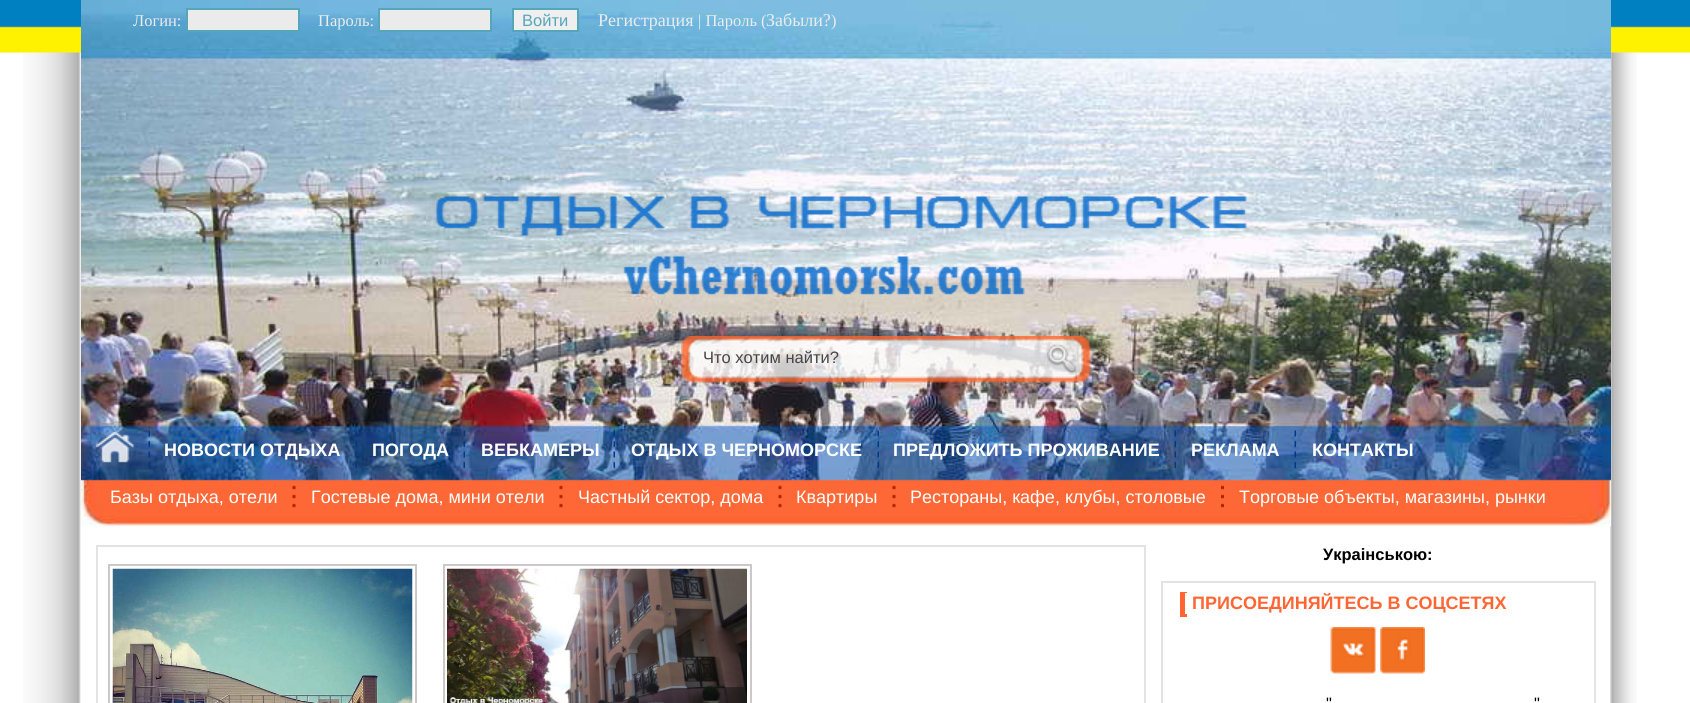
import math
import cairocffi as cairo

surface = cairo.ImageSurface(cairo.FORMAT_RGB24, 1690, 703)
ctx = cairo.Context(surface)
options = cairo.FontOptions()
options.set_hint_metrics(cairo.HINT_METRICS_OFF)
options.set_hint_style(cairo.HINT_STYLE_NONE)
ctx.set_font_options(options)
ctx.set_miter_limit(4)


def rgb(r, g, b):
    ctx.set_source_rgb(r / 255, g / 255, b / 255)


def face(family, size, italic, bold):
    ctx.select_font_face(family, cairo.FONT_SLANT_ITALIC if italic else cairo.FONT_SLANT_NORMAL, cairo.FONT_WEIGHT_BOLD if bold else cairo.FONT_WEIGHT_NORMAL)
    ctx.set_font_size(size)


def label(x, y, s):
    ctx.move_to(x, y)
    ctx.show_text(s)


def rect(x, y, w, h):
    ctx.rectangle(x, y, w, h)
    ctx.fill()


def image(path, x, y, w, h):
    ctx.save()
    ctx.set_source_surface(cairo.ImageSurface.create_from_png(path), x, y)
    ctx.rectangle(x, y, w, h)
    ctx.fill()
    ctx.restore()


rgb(255, 255, 255)
ctx.paint()
image('image0.png', 23, 52, 1614, 651)
image('image1.png', 0, 0, 1690, 53)
image('image2.png', 81, 0, 1530, 527)
face('Liberation Serif', 16.5, 0, 0)
rgb(235, 236, 236)
label(133, 26, 'Логин:')
rgb(235, 235, 235)
ctx.rectangle(187, 9, 112, 22)
ctx.fill_preserve()
rgb(85, 166, 185)
ctx.stroke()
rgb(235, 236, 236)
label(318, 26, 'Пароль:')
rgb(235, 235, 235)
ctx.rectangle(379, 9, 112, 22)
ctx.fill_preserve()
rgb(85, 166, 185)
ctx.stroke()
rgb(239, 239, 239)
ctx.rectangle(513, 9, 65, 22)
ctx.fill_preserve()
rgb(85, 166, 185)
ctx.stroke()
face('Liberation Sans', 16.5, 0, 0)
label(522, 26, 'Войти')
face('Liberation Serif', 18, 0, 0)
rgb(235, 236, 236)
label(598, 26, 'Регистрация')
face('Liberation Serif', 16.5, 0, 0)
label(698, 26, '| Пароль (')
face('Liberation Serif', 18, 0, 0)
label(766, 26, 'Забыли?')
face('Liberation Serif', 16.5, 0, 0)
label(831, 26, ')')
image('image3.png', 681, 336, 410, 47)
face('Liberation Sans', 16.5, 0, 0)
rgb(70, 70, 70)
label(703, 363, 'Что хотим найти?')
image('image4.png', 1046, 343, 31, 32)
image('image5.png', 96, 431, 38, 32)
image('image6.png', 148, 430, 2, 39)
face('Liberation Sans', 18, 0, 1)
rgb(255, 255, 255)
label(164, 456, 'НОВОСТИ ОТДЫХА')
image('image7.png', 355, 430, 2, 39)
label(372, 456, 'ПОГОДА')
image('image8.png', 463, 430, 2, 39)
label(481, 456, 'ВЕБКАМЕРЫ')
image('image9.png', 613, 430, 2, 39)
label(631, 456, 'ОТДЫХ В ЧЕРНОМОРСКЕ')
image('image10.png', 877, 430, 2, 39)
label(893, 456, 'ПРЕДЛОЖИТЬ ПРОЖИВАНИЕ')
image('image11.png', 1174, 430, 2, 39)
label(1191, 456, 'РЕКЛАМА')
image('image12.png', 1294, 430, 2, 39)
label(1312, 456, 'КОНТАКТЫ')
face('Liberation Sans', 18, 0, 0)
label(110, 503, 'Базы отдыха, отели')
image('image13.png', 292, 485, 4, 23)
label(311, 503, 'Гостевые дома, мини отели')
image('image13.png', 559, 485, 4, 23)
label(578, 503, 'Частный сектор, дома')
image('image13.png', 778, 485, 4, 23)
label(796, 503, 'Квартиры')
image('image13.png', 892, 485, 4, 23)
label(910, 503, 'Рестораны, кафе, клубы, столовые')
image('image14.png', 1221, 485, 3, 23)
label(1239, 503, 'Торговые объекты, магазины, рынки')
ctx.rectangle(97, 546, 1048, 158)
rgb(227, 227, 227)
ctx.stroke()
ctx.rectangle(109, 565, 307, 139)
rgb(205, 200, 199)
ctx.stroke()
image('image15.png', 112, 568, 301, 135)
ctx.rectangle(444, 565, 307, 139)
ctx.stroke()
image('image16.png', 447, 568, 300, 135)
face('Liberation Sans', 16.5, 0, 1)
rgb(0, 0, 0)
label(1323, 560, 'Украiнською:')
ctx.rectangle(1162, 582, 433, 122)
rgb(227, 227, 227)
ctx.stroke()
rgb(255, 102, 51)
rect(1180, 592, 7, 25)
ctx.save()
ctx.rectangle(1181, 593, 396, 24)
ctx.clip()
face('Liberation Sans', 18, 0, 1)
label(1192, 609, 'ПРИСОЕДИНЯЙТЕСЬ В СОЦСЕТЯХ')
ctx.restore()
rgb(255, 255, 255)
rect(1185, 593, 2, 21)
image('image17.png', 1330, 627, 46, 47)
image('image18.png', 1380, 627, 45, 47)
face('Liberation Sans', 16.5, 0, 0)
rgb(0, 0, 0)
label(1326, 709, '"')
label(1534, 709, '"')
surface.write_to_png('render.png')
